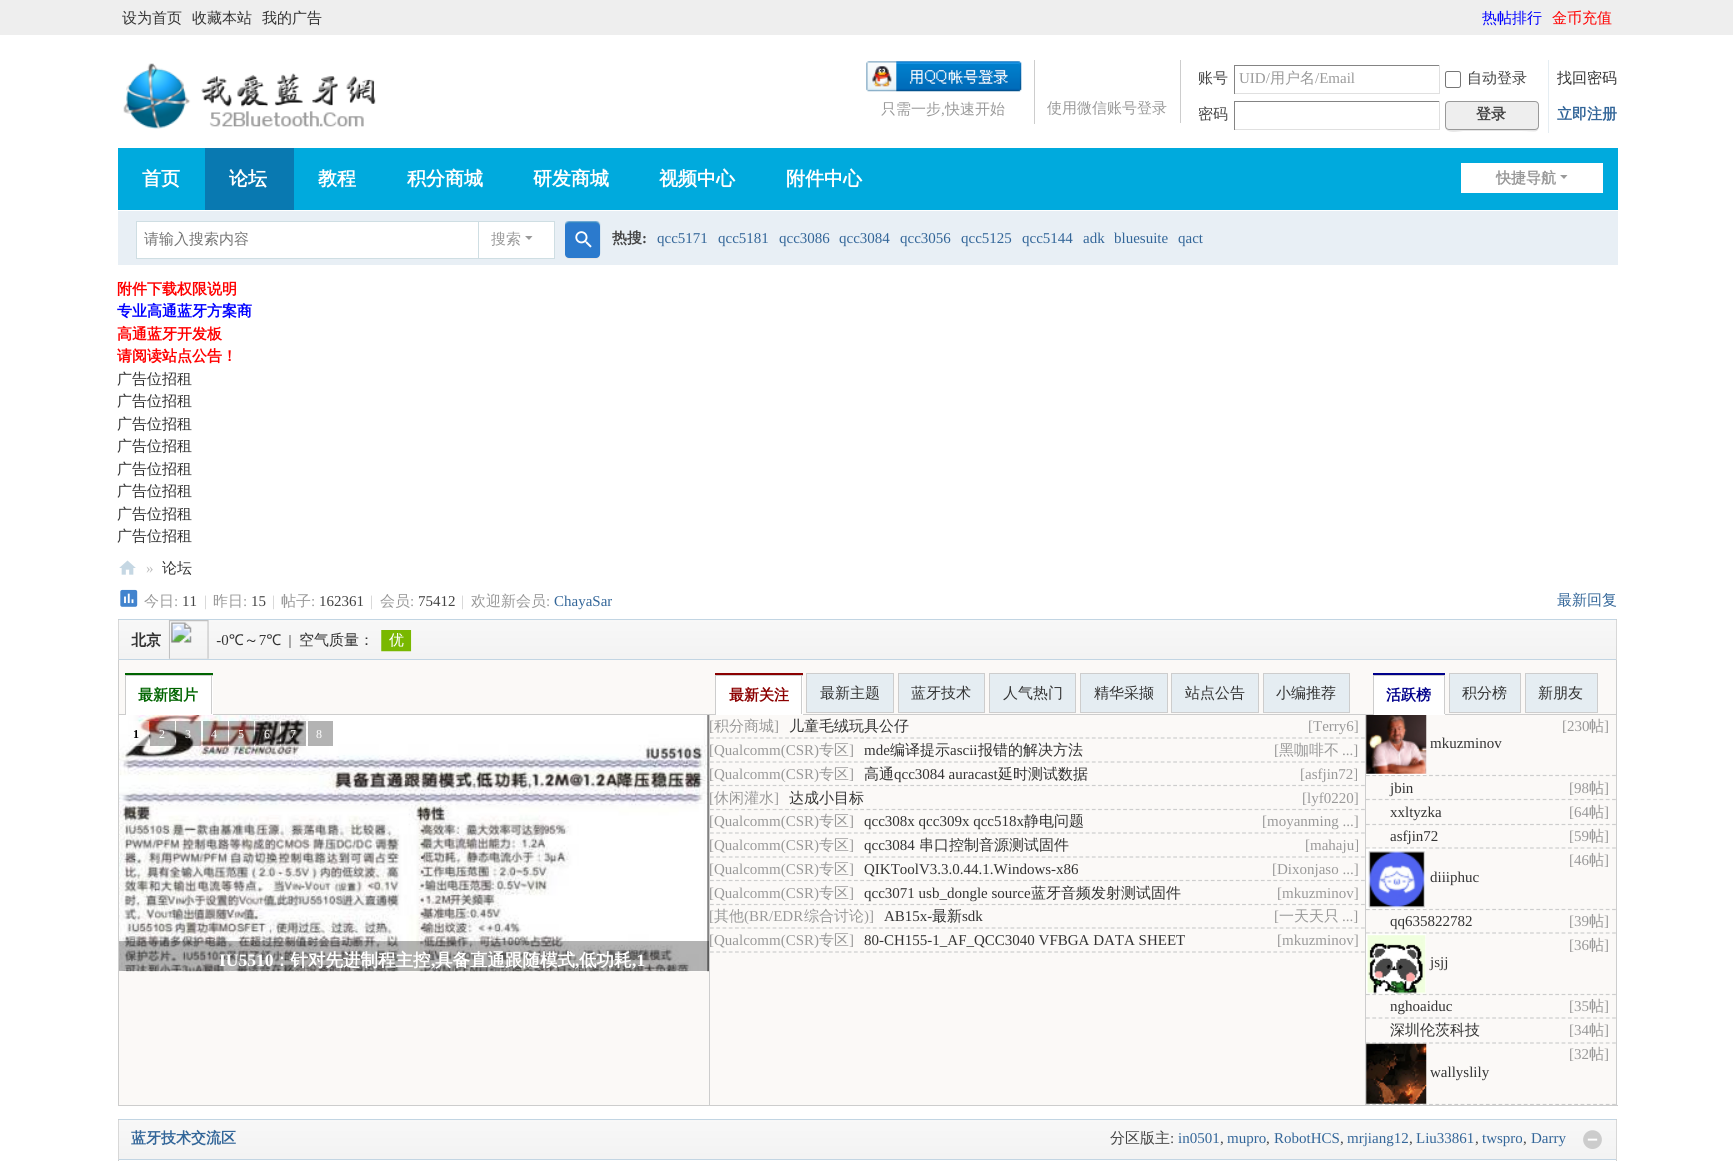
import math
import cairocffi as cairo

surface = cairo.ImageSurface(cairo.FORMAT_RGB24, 1733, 1161)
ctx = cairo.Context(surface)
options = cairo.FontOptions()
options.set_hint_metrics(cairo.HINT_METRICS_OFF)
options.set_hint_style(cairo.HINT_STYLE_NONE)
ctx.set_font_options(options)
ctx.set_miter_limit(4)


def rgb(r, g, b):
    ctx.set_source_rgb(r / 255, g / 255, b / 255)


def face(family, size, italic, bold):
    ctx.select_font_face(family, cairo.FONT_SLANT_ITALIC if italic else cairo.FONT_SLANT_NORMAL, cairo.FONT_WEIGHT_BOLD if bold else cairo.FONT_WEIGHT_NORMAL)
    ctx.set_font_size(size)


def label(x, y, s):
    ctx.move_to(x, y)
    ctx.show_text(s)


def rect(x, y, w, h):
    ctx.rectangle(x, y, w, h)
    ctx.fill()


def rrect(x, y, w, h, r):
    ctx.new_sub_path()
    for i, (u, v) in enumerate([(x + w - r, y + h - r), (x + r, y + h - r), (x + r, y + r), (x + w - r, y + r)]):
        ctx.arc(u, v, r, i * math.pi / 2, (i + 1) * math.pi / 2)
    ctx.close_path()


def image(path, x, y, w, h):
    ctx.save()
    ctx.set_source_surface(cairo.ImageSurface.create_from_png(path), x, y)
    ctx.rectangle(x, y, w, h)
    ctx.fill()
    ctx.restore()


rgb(255, 255, 255)
ctx.paint()
rgb(238, 238, 238)
rect(0, 0, 1733, 35)
face('WenQuanYi Zen Hei Medium', 15, 0, 0)
rgb(51, 51, 51)
label(122, 23, '设为首页')
label(192, 23, '收藏本站')
label(262, 23, '我的广告')
rgb(0, 0, 255)
label(1482, 23, '热帖排行')
rgb(255, 0, 0)
label(1552, 23, '金币充值')
image('image0.png', 123, 63, 253, 66)
rgb(205, 205, 205)
rect(1034, 60, 1, 64)
image('image1.png', 866, 61, 156, 31)
rgb(153, 153, 153)
label(881, 114, '只需一步')
face('Liberation Serif', 15, 0, 0)
label(941, 114, ',')
face('WenQuanYi Zen Hei Medium', 15, 0, 0)
label(945, 114, '快速开始')
rgb(205, 205, 205)
rect(1180, 60, 1, 63)
rgb(153, 153, 153)
label(1047, 113, '使用微信账号登录')
rgb(68, 68, 68)
label(1198, 83, '账号')
rgb(132, 132, 132)
rect(1234, 65, 206, 1)
rgb(224, 224, 224)
rect(1439, 65, 1, 29)
rect(1234, 93, 206, 1)
rgb(132, 132, 132)
rect(1234, 65, 1, 29)
face('Liberation Serif', 15, 0, 0)
rgb(153, 153, 153)
label(1239, 83, 'UID/')
face('WenQuanYi Zen Hei Medium', 15, 0, 0)
label(1270, 83, '用户名')
face('Liberation Serif', 15, 0, 0)
label(1315, 83, '/Email')
rrect(1445.5, 71.5, 15, 16, 2)
rgb(118, 118, 118)
ctx.set_line_width(1)
ctx.stroke()
face('WenQuanYi Zen Hei Medium', 15, 0, 0)
rgb(68, 68, 68)
label(1467, 83, '自动登录')
rgb(51, 51, 51)
label(1557, 83, '找回密码')
rgb(68, 68, 68)
label(1198, 119, '密码')
rgb(132, 132, 132)
rect(1234, 101, 206, 1)
rgb(224, 224, 224)
rect(1439, 101, 1, 29)
rect(1234, 129, 206, 1)
rgb(132, 132, 132)
rect(1234, 101, 1, 29)
rgb(229, 237, 242)
rect(1548, 60, 1, 73)
rgb(229, 229, 229)
ctx.new_path()
ctx.move_to(1445, 126)
ctx.curve_to(1445, 135, 1460, 131, 1463, 131)
ctx.line_to(1521, 131)
ctx.curve_to(1538, 131, 1539, 135, 1539, 120)
ctx.line_to(1539, 106)
ctx.line_to(1539, 126)
ctx.curve_to(1539, 128, 1537, 130, 1535, 130)
ctx.line_to(1449, 130)
ctx.curve_to(1447, 130, 1445, 128, 1445, 126)
ctx.close_path()
ctx.fill()
rgb(238, 238, 238)
rrect(1445.5, 101.5, 93, 28, 3.5)
ctx.fill_preserve()
rgb(153, 153, 153)
ctx.stroke()
face('WenQuanYi Zen Hei', 15, 0, 1)
rgb(68, 68, 68)
label(1476, 119, '登录')
rgb(51, 102, 153)
label(1557, 119, '立即注册')
rgb(0, 170, 221)
rect(118, 148, 1500, 62)
face('WenQuanYi Zen Hei', 19, 0, 1)
rgb(255, 255, 255)
label(142, 185, '首页')
rgb(9, 121, 177)
rect(205, 148, 89, 62)
rgb(255, 255, 255)
label(229, 185, '论坛')
label(318, 185, '教程')
label(407, 185, '积分商城')
label(533, 185, '研发商城')
label(659, 185, '视频中心')
label(786, 185, '附件中心')
rect(1461, 163, 142, 30)
face('WenQuanYi Zen Hei', 15, 0, 1)
rgb(153, 153, 153)
label(1496, 183, '快捷导航')
ctx.new_path()
ctx.move_to(1560, 175)
ctx.line_to(1567.5, 175)
ctx.line_to(1564, 179)
ctx.close_path()
ctx.fill()
rgb(232, 239, 245)
rect(118, 211, 1500, 54)
rgb(207, 222, 227)
rect(476, 221, 79, 1)
rect(554, 221, 1, 38)
rect(476, 258, 79, 1)
rgb(255, 255, 255)
ctx.rectangle(136.5, 221.5, 342, 37)
ctx.fill_preserve()
rgb(207, 222, 227)
ctx.stroke()
face('WenQuanYi Zen Hei Medium', 15, 0, 0)
rgb(117, 117, 117)
label(144, 244, '请输入搜索内容')
rgb(255, 255, 255)
rect(479, 222, 75, 36)
rgb(153, 153, 153)
label(491, 244, '搜索')
ctx.new_path()
ctx.move_to(525, 236)
ctx.line_to(532.5, 236)
ctx.line_to(529, 240)
ctx.close_path()
ctx.fill()
image('image2.png', 565, 221, 36, 36)
rgb(229, 229, 229)
ctx.new_path()
ctx.move_to(565, 254)
ctx.curve_to(565, 259.5, 568.5, 259, 573.5, 259)
ctx.line_to(591.5, 259)
ctx.curve_to(596.5, 259, 600, 259.5, 600, 254)
ctx.curve_to(600, 256, 598.5, 257.5, 596, 257.5)
ctx.line_to(569, 257.5)
ctx.curve_to(566.5, 257.5, 565, 256, 565, 254)
ctx.close_path()
ctx.fill()
rgb(43, 122, 205)
rrect(565, 223, 35, 35, 4)
ctx.fill()
image('image3.png', 575, 231, 17, 17)
face('WenQuanYi Zen Hei', 15, 0, 1)
rgb(68, 68, 68)
label(612, 243, '热搜')
face('Liberation Serif', 15, 0, 1)
label(642, 243, ':')
face('Liberation Serif', 15, 0, 0)
rgb(51, 102, 153)
label(657, 243, 'qcc5171')
label(718, 243, 'qcc5181')
label(779, 243, 'qcc3086')
label(839, 243, 'qcc3084')
label(900, 243, 'qcc3056')
label(961, 243, 'qcc5125')
label(1022, 243, 'qcc5144')
label(1083, 243, 'adk')
label(1114, 243, 'bluesuite')
label(1178, 243, 'qact')
face('WenQuanYi Zen Hei', 15, 0, 1)
rgb(255, 0, 0)
label(117, 294, '附件下载权限说明')
rgb(0, 0, 255)
label(117, 316, '专业高通蓝牙方案商')
rgb(255, 0, 0)
label(117, 339, '高通蓝牙开发板')
label(117, 361, '请阅读站点公告！')
face('WenQuanYi Zen Hei Medium', 15, 0, 0)
rgb(51, 51, 51)
label(117, 384, '广告位招租')
label(117, 406, '广告位招租')
label(117, 429, '广告位招租')
label(117, 451, '广告位招租')
label(117, 474, '广告位招租')
label(117, 496, '广告位招租')
label(117, 519, '广告位招租')
label(117, 541, '广告位招租')
image('image4.png', 119, 560, 17, 15)
face('Liberation Serif', 15, 0, 0)
rgb(189, 189, 189)
label(146, 573, '»')
face('WenQuanYi Zen Hei Medium', 15, 0, 0)
rgb(51, 51, 51)
label(162, 573, '论坛')
image('image5.png', 120, 589, 18, 18)
rgb(153, 153, 153)
label(144, 606, '今日')
face('Liberation Serif', 15, 0, 0)
label(174, 606, ':')
rgb(68, 68, 68)
label(182, 606, '11')
rgb(204, 204, 204)
label(204, 606, '|')
face('WenQuanYi Zen Hei Medium', 15, 0, 0)
rgb(153, 153, 153)
label(213, 606, '昨日')
face('Liberation Serif', 15, 0, 0)
label(243, 606, ':')
rgb(68, 68, 68)
label(251, 606, '15')
rgb(204, 204, 204)
label(272, 606, '|')
face('WenQuanYi Zen Hei Medium', 15, 0, 0)
rgb(153, 153, 153)
label(281, 606, '帖子')
face('Liberation Serif', 15, 0, 0)
label(311, 606, ':')
rgb(68, 68, 68)
label(319, 606, '162361')
rgb(204, 204, 204)
label(370, 606, '|')
face('WenQuanYi Zen Hei Medium', 15, 0, 0)
rgb(153, 153, 153)
label(380, 606, '会员')
face('Liberation Serif', 15, 0, 0)
label(410, 606, ':')
rgb(68, 68, 68)
label(418, 606, '75412')
rgb(204, 204, 204)
label(461, 606, '|')
face('WenQuanYi Zen Hei Medium', 15, 0, 0)
rgb(153, 153, 153)
label(471, 606, '欢迎新会员')
face('Liberation Serif', 15, 0, 0)
label(546, 606, ':')
rgb(51, 102, 153)
label(554, 606, 'ChayaSar')
face('WenQuanYi Zen Hei Medium', 15, 0, 0)
label(1557, 605, '最新回复')
rgb(205, 205, 205)
rect(1616, 619, 1, 487)
rect(118, 1105, 1500, 1)
rect(118, 619, 1, 487)
image('image6.png', 118, 620, 1499, 40)
rgb(194, 213, 227)
rect(119, 619, 1497, 1)
rect(119, 659, 1497, 1)
image('image7.png', 131, 620, 281, 39)
rgb(251, 249, 247)
rect(119, 660, 1497, 445)
rgb(205, 205, 205)
rect(119, 714, 1497, 1)
rgb(0, 100, 0)
rect(125, 673, 88, 2)
rgb(255, 255, 255)
rect(126, 676, 87, 38)
rgb(205, 205, 205)
rect(125, 675, 88, 1)
rect(211, 675, 1, 40)
rgb(255, 255, 255)
rect(125, 714, 88, 1)
rgb(205, 205, 205)
rect(125, 675, 1, 40)
face('WenQuanYi Zen Hei', 15, 0, 1)
rgb(0, 100, 0)
label(138, 700, '最新图片')
rgb(139, 0, 0)
rect(715, 673, 88, 2)
rgb(255, 255, 255)
rect(716, 676, 87, 38)
rgb(205, 205, 205)
rect(715, 675, 88, 1)
rect(801, 675, 1, 40)
rgb(255, 255, 255)
rect(715, 714, 88, 1)
rgb(205, 205, 205)
rect(715, 675, 1, 40)
rgb(139, 0, 0)
label(729, 700, '最新关注')
rgb(229, 237, 242)
ctx.rectangle(806.5, 673.5, 87, 39)
ctx.fill_preserve()
rgb(205, 205, 205)
ctx.stroke()
face('WenQuanYi Zen Hei Medium', 15, 0, 0)
rgb(51, 51, 51)
label(820, 698, '最新主题')
rgb(229, 237, 242)
ctx.rectangle(898.5, 673.5, 86, 39)
ctx.fill_preserve()
rgb(205, 205, 205)
ctx.stroke()
rgb(51, 51, 51)
label(911, 698, '蓝牙技术')
rgb(229, 237, 242)
ctx.rectangle(989.5, 673.5, 86, 39)
ctx.fill_preserve()
rgb(205, 205, 205)
ctx.stroke()
rgb(51, 51, 51)
label(1003, 698, '人气热门')
rgb(229, 237, 242)
ctx.rectangle(1080.5, 673.5, 87, 39)
ctx.fill_preserve()
rgb(205, 205, 205)
ctx.stroke()
rgb(51, 51, 51)
label(1094, 698, '精华采撷')
rgb(229, 237, 242)
ctx.rectangle(1171.5, 673.5, 87, 39)
ctx.fill_preserve()
rgb(205, 205, 205)
ctx.stroke()
rgb(51, 51, 51)
label(1185, 698, '站点公告')
rgb(229, 237, 242)
ctx.rectangle(1263.5, 673.5, 86, 39)
ctx.fill_preserve()
rgb(205, 205, 205)
ctx.stroke()
rgb(51, 51, 51)
label(1276, 698, '小编推荐')
rgb(0, 0, 139)
rect(1373, 673, 72, 2)
rgb(255, 255, 255)
rect(1374, 676, 70, 38)
rgb(205, 205, 205)
rect(1373, 675, 72, 1)
rect(1444, 675, 1, 40)
rgb(255, 255, 255)
rect(1373, 714, 72, 1)
rgb(205, 205, 205)
rect(1373, 675, 1, 40)
face('WenQuanYi Zen Hei', 15, 0, 1)
rgb(0, 0, 139)
label(1386, 700, '活跃榜')
rgb(229, 237, 242)
ctx.rectangle(1449.5, 673.5, 71, 39)
ctx.fill_preserve()
rgb(205, 205, 205)
ctx.stroke()
face('WenQuanYi Zen Hei Medium', 15, 0, 0)
rgb(51, 51, 51)
label(1462, 698, '积分榜')
rgb(229, 237, 242)
ctx.rectangle(1525.5, 673.5, 72, 39)
ctx.fill_preserve()
rgb(205, 205, 205)
ctx.stroke()
rgb(51, 51, 51)
label(1538, 698, '新朋友')
image('image8.png', 119, 715, 590, 257)
ctx.set_source_rgba(1, 1, 1, 0.5)
rect(129, 721, 20, 25)
face('Liberation Serif', 12, 0, 1)
rgb(0, 0, 0)
label(133, 738, '1')
ctx.set_source_rgba(0, 0, 0, 0.3)
rect(150, 721, 25, 25)
face('Liberation Serif', 12, 0, 0)
rgb(255, 255, 255)
label(159, 738, '2')
ctx.set_source_rgba(0, 0, 0, 0.3)
rect(176, 721, 25, 25)
rgb(255, 255, 255)
label(185, 738, '3')
ctx.set_source_rgba(0, 0, 0, 0.3)
rect(203, 721, 25, 25)
rgb(255, 255, 255)
label(211, 738, '4')
ctx.set_source_rgba(0, 0, 0, 0.3)
rect(229, 721, 25, 25)
rgb(255, 255, 255)
label(238, 738, '5')
ctx.set_source_rgba(0, 0, 0, 0.3)
rect(255, 721, 25, 25)
rgb(255, 255, 255)
label(264, 738, '6')
ctx.set_source_rgba(0, 0, 0, 0.3)
rect(281, 721, 25, 25)
rgb(255, 255, 255)
label(290, 738, '7')
ctx.set_source_rgba(0, 0, 0, 0.3)
rect(308, 721, 25, 25)
rgb(255, 255, 255)
label(316, 738, '8')
ctx.set_source_rgba(0, 0, 0, 0.3)
rect(119, 941, 590, 30)
face('Liberation Serif', 17.5, 0, 1)
rgb(255, 255, 255)
label(219, 966, 'IU5510')
face('WenQuanYi Zen Hei', 17.5, 0, 1)
label(273, 966, '：针对先进制程主控')
face('Liberation Serif', 17.5, 0, 1)
label(431, 966, ',')
face('WenQuanYi Zen Hei', 17.5, 0, 1)
label(435, 966, '具备直通跟随模式')
face('Liberation Serif', 17.5, 0, 1)
label(575, 966, ',')
face('WenQuanYi Zen Hei', 17.5, 0, 1)
label(579, 966, '低功耗')
face('Liberation Serif', 17.5, 0, 1)
label(632, 966, ',1')
rgb(205, 205, 205)
rect(709, 715, 1, 390)
ctx.new_path()
ctx.move_to(710, 738)
ctx.line_to(1365, 738)
ctx.set_line_width(1.2)
ctx.set_dash([3.75, 2.51])
ctx.stroke()
face('Liberation Serif', 15, 0, 0)
rgb(153, 153, 153)
label(709, 731, '[')
face('WenQuanYi Zen Hei Medium', 15, 0, 0)
label(714, 731, '积分商城')
face('Liberation Serif', 15, 0, 0)
label(774, 731, ']')
face('WenQuanYi Zen Hei Medium', 15, 0, 0)
rgb(51, 51, 51)
label(789, 731, '儿童毛绒玩具公仔')
face('Liberation Serif', 15, 0, 0)
rgb(153, 153, 153)
label(1308, 731, '[Terry6]')
ctx.new_path()
ctx.move_to(710, 762)
ctx.line_to(1365, 762)
rgb(205, 205, 205)
ctx.stroke()
rgb(153, 153, 153)
label(709, 755, '[Qualcomm(CSR)')
face('WenQuanYi Zen Hei Medium', 15, 0, 0)
label(819, 755, '专区')
face('Liberation Serif', 15, 0, 0)
label(849, 755, ']')
rgb(51, 51, 51)
label(864, 755, 'mde')
face('WenQuanYi Zen Hei Medium', 15, 0, 0)
label(890, 755, '编译提示')
face('Liberation Serif', 15, 0, 0)
label(950, 755, 'ascii')
face('WenQuanYi Zen Hei Medium', 15, 0, 0)
label(978, 755, '报错的解决方法')
face('Liberation Serif', 15, 0, 0)
rgb(153, 153, 153)
label(1274, 755, '[')
face('WenQuanYi Zen Hei Medium', 15, 0, 0)
label(1279, 755, '黑咖啡不')
face('Liberation Serif', 15, 0, 0)
label(1342, 755, '...]')
ctx.new_path()
ctx.move_to(710, 785.5)
ctx.line_to(1365, 785.5)
rgb(205, 205, 205)
ctx.stroke()
rgb(153, 153, 153)
label(709, 779, '[Qualcomm(CSR)')
face('WenQuanYi Zen Hei Medium', 15, 0, 0)
label(819, 779, '专区')
face('Liberation Serif', 15, 0, 0)
label(849, 779, ']')
face('WenQuanYi Zen Hei Medium', 15, 0, 0)
rgb(51, 51, 51)
label(864, 779, '高通')
face('Liberation Serif', 15, 0, 0)
label(894, 779, 'qcc3084 auracast')
face('WenQuanYi Zen Hei Medium', 15, 0, 0)
label(998, 779, '延时测试数据')
face('Liberation Serif', 15, 0, 0)
rgb(153, 153, 153)
label(1300, 779, '[asfjin72]')
ctx.new_path()
ctx.move_to(710, 809.5)
ctx.line_to(1365, 809.5)
rgb(205, 205, 205)
ctx.stroke()
rgb(153, 153, 153)
label(709, 803, '[')
face('WenQuanYi Zen Hei Medium', 15, 0, 0)
label(714, 803, '休闲灌水')
face('Liberation Serif', 15, 0, 0)
label(774, 803, ']')
face('WenQuanYi Zen Hei Medium', 15, 0, 0)
rgb(51, 51, 51)
label(789, 803, '达成小目标')
face('Liberation Serif', 15, 0, 0)
rgb(153, 153, 153)
label(1302, 803, '[lyf0220]')
ctx.new_path()
ctx.move_to(710, 833)
ctx.line_to(1365, 833)
rgb(205, 205, 205)
ctx.stroke()
rgb(153, 153, 153)
label(709, 826, '[Qualcomm(CSR)')
face('WenQuanYi Zen Hei Medium', 15, 0, 0)
label(819, 826, '专区')
face('Liberation Serif', 15, 0, 0)
label(849, 826, ']')
rgb(51, 51, 51)
label(864, 826, 'qcc308x qcc309x qcc518x')
face('WenQuanYi Zen Hei Medium', 15, 0, 0)
label(1024, 826, '静电问题')
face('Liberation Serif', 15, 0, 0)
rgb(153, 153, 153)
label(1262, 826, '[moyanming ...]')
ctx.new_path()
ctx.move_to(710, 857)
ctx.line_to(1365, 857)
rgb(205, 205, 205)
ctx.stroke()
rgb(153, 153, 153)
label(709, 850, '[Qualcomm(CSR)')
face('WenQuanYi Zen Hei Medium', 15, 0, 0)
label(819, 850, '专区')
face('Liberation Serif', 15, 0, 0)
label(849, 850, ']')
rgb(51, 51, 51)
label(864, 850, 'qcc3084')
face('WenQuanYi Zen Hei Medium', 15, 0, 0)
label(919, 850, '串口控制音源测试固件')
face('Liberation Serif', 15, 0, 0)
rgb(153, 153, 153)
label(1305, 850, '[mahaju]')
ctx.new_path()
ctx.move_to(710, 880.5)
ctx.line_to(1365, 880.5)
rgb(205, 205, 205)
ctx.stroke()
rgb(153, 153, 153)
label(709, 874, '[Qualcomm(CSR)')
face('WenQuanYi Zen Hei Medium', 15, 0, 0)
label(819, 874, '专区')
face('Liberation Serif', 15, 0, 0)
label(849, 874, ']')
rgb(51, 51, 51)
label(864, 874, 'QIKToolV3.3.0.44.1.Windows-x86')
rgb(153, 153, 153)
label(1272, 874, '[Dixonjaso ...]')
ctx.new_path()
ctx.move_to(710, 904.5)
ctx.line_to(1365, 904.5)
rgb(205, 205, 205)
ctx.stroke()
rgb(153, 153, 153)
label(709, 898, '[Qualcomm(CSR)')
face('WenQuanYi Zen Hei Medium', 15, 0, 0)
label(819, 898, '专区')
face('Liberation Serif', 15, 0, 0)
label(849, 898, ']')
rgb(51, 51, 51)
label(864, 898, 'qcc3071 usb_dongle source')
face('WenQuanYi Zen Hei Medium', 15, 0, 0)
label(1031, 898, '蓝牙音频发射测试固件')
face('Liberation Serif', 15, 0, 0)
rgb(153, 153, 153)
label(1277, 898, '[mkuzminov]')
ctx.new_path()
ctx.move_to(710, 928)
ctx.line_to(1365, 928)
rgb(205, 205, 205)
ctx.stroke()
rgb(153, 153, 153)
label(709, 921, '[')
face('WenQuanYi Zen Hei Medium', 15, 0, 0)
label(714, 921, '其他')
face('Liberation Serif', 15, 0, 0)
label(744, 921, '(BR/EDR')
face('WenQuanYi Zen Hei Medium', 15, 0, 0)
label(804, 921, '综合讨论')
face('Liberation Serif', 15, 0, 0)
label(864, 921, ')]')
rgb(51, 51, 51)
label(884, 921, 'AB15x-')
face('WenQuanYi Zen Hei Medium', 15, 0, 0)
label(932, 921, '最新')
face('Liberation Serif', 15, 0, 0)
label(962, 921, 'sdk')
rgb(153, 153, 153)
label(1274, 921, '[')
face('WenQuanYi Zen Hei Medium', 15, 0, 0)
label(1279, 921, '一天天只')
face('Liberation Serif', 15, 0, 0)
label(1342, 921, '...]')
ctx.new_path()
ctx.move_to(710, 952)
ctx.line_to(1365, 952)
rgb(205, 205, 205)
ctx.stroke()
rgb(153, 153, 153)
label(709, 945, '[Qualcomm(CSR)')
face('WenQuanYi Zen Hei Medium', 15, 0, 0)
label(819, 945, '专区')
face('Liberation Serif', 15, 0, 0)
label(849, 945, ']')
rgb(51, 51, 51)
label(864, 945, '80-CH155-1_AF_QCC3040 VFBGA DATA SHEET')
rgb(153, 153, 153)
label(1277, 945, '[mkuzminov]')
rgb(205, 205, 205)
rect(1365, 715, 1, 390)
ctx.new_path()
ctx.move_to(1366, 775.5)
ctx.line_to(1616, 775.5)
ctx.set_dash([3.75, 2.56])
ctx.stroke()
image('image9.png', 1366, 715, 61, 60)
rgb(153, 153, 153)
label(1562, 731, '[230')
face('WenQuanYi Zen Hei Medium', 15, 0, 0)
label(1589, 731, '帖')
face('Liberation Serif', 15, 0, 0)
label(1604, 731, ']')
rgb(51, 51, 51)
label(1430, 748, 'mkuzminov')
ctx.new_path()
ctx.move_to(1366, 799.5)
ctx.line_to(1616, 799.5)
rgb(205, 205, 205)
ctx.stroke()
rgb(51, 51, 51)
label(1390, 793, 'jbin')
rgb(153, 153, 153)
label(1569, 793, '[98')
face('WenQuanYi Zen Hei Medium', 15, 0, 0)
label(1589, 793, '帖')
face('Liberation Serif', 15, 0, 0)
label(1604, 793, ']')
ctx.new_path()
ctx.move_to(1366, 824.5)
ctx.line_to(1616, 824.5)
rgb(205, 205, 205)
ctx.stroke()
rgb(51, 51, 51)
label(1390, 817, 'xxltyzka')
rgb(153, 153, 153)
label(1569, 817, '[64')
face('WenQuanYi Zen Hei Medium', 15, 0, 0)
label(1589, 817, '帖')
face('Liberation Serif', 15, 0, 0)
label(1604, 817, ']')
ctx.new_path()
ctx.move_to(1366, 848)
ctx.line_to(1616, 848)
rgb(205, 205, 205)
ctx.stroke()
rgb(51, 51, 51)
label(1390, 841, 'asfjin72')
rgb(153, 153, 153)
label(1569, 841, '[59')
face('WenQuanYi Zen Hei Medium', 15, 0, 0)
label(1589, 841, '帖')
face('Liberation Serif', 15, 0, 0)
label(1604, 841, ']')
ctx.new_path()
ctx.move_to(1366, 909.5)
ctx.line_to(1616, 909.5)
rgb(205, 205, 205)
ctx.stroke()
image('image10.png', 1366, 848, 60, 61)
rgb(153, 153, 153)
label(1569, 865, '[46')
face('WenQuanYi Zen Hei Medium', 15, 0, 0)
label(1589, 865, '帖')
face('Liberation Serif', 15, 0, 0)
label(1604, 865, ']')
rgb(51, 51, 51)
label(1430, 882, 'diiiphuc')
ctx.new_path()
ctx.move_to(1366, 933)
ctx.line_to(1616, 933)
rgb(205, 205, 205)
ctx.stroke()
rgb(51, 51, 51)
label(1390, 926, 'qq635822782')
rgb(153, 153, 153)
label(1569, 926, '[39')
face('WenQuanYi Zen Hei Medium', 15, 0, 0)
label(1589, 926, '帖')
face('Liberation Serif', 15, 0, 0)
label(1604, 926, ']')
ctx.new_path()
ctx.move_to(1366, 994.5)
ctx.line_to(1616, 994.5)
rgb(205, 205, 205)
ctx.stroke()
image('image11.png', 1366, 933, 60, 61)
rgb(153, 153, 153)
label(1569, 950, '[36')
face('WenQuanYi Zen Hei Medium', 15, 0, 0)
label(1589, 950, '帖')
face('Liberation Serif', 15, 0, 0)
label(1604, 950, ']')
rgb(51, 51, 51)
label(1430, 967, 'jsjj')
ctx.new_path()
ctx.move_to(1366, 1018)
ctx.line_to(1616, 1018)
rgb(205, 205, 205)
ctx.stroke()
rgb(51, 51, 51)
label(1390, 1011, 'nghoaiduc')
rgb(153, 153, 153)
label(1569, 1011, '[35')
face('WenQuanYi Zen Hei Medium', 15, 0, 0)
label(1589, 1011, '帖')
face('Liberation Serif', 15, 0, 0)
label(1604, 1011, ']')
ctx.new_path()
ctx.move_to(1366, 1043)
ctx.line_to(1616, 1043)
rgb(205, 205, 205)
ctx.stroke()
face('WenQuanYi Zen Hei Medium', 15, 0, 0)
rgb(51, 51, 51)
label(1390, 1035, '深圳伦茨科技')
face('Liberation Serif', 15, 0, 0)
rgb(153, 153, 153)
label(1569, 1035, '[34')
face('WenQuanYi Zen Hei Medium', 15, 0, 0)
label(1589, 1035, '帖')
face('Liberation Serif', 15, 0, 0)
label(1604, 1035, ']')
ctx.new_path()
ctx.move_to(1366, 1104.5)
ctx.line_to(1616, 1104.5)
rgb(205, 205, 205)
ctx.stroke()
image('image12.png', 1366, 1043, 61, 61)
rgb(153, 153, 153)
label(1569, 1059, '[32')
face('WenQuanYi Zen Hei Medium', 15, 0, 0)
label(1589, 1059, '帖')
face('Liberation Serif', 15, 0, 0)
label(1604, 1059, ']')
rgb(51, 51, 51)
label(1430, 1077, 'wallyslily')
rgb(205, 205, 205)
rect(1616, 1119, 1, 42)
rect(118, 1119, 1, 42)
image('image13.png', 118, 1120, 1499, 40)
rgb(194, 213, 227)
rect(119, 1119, 1497, 1)
rect(119, 1159, 1497, 1)
face('WenQuanYi Zen Hei', 15, 0, 1)
rgb(51, 102, 153)
label(131, 1143, '蓝牙技术交流区')
face('WenQuanYi Zen Hei Medium', 15, 0, 0)
rgb(68, 68, 68)
label(1110, 1143, '分区版主')
face('Liberation Serif', 15, 0, 0)
label(1170, 1143, ':')
rgb(51, 102, 153)
label(1178, 1143, 'in0501')
rgb(68, 68, 68)
label(1220, 1143, ',')
rgb(51, 102, 153)
label(1227, 1143, 'mupro')
rgb(68, 68, 68)
label(1266, 1143, ',')
rgb(51, 102, 153)
label(1274, 1143, 'RobotHCS')
rgb(68, 68, 68)
label(1340, 1143, ',')
rgb(51, 102, 153)
label(1347, 1143, 'mrjiang12')
rgb(68, 68, 68)
label(1409, 1143, ',')
rgb(51, 102, 153)
label(1416, 1143, 'Liu33861')
rgb(68, 68, 68)
label(1475, 1143, ',')
rgb(51, 102, 153)
label(1482, 1143, 'twspro')
rgb(68, 68, 68)
label(1523, 1143, ',')
rgb(51, 102, 153)
label(1531, 1143, 'Darry')
image('image14.png', 1583, 1130, 19, 19)
surface.write_to_png('render.png')
